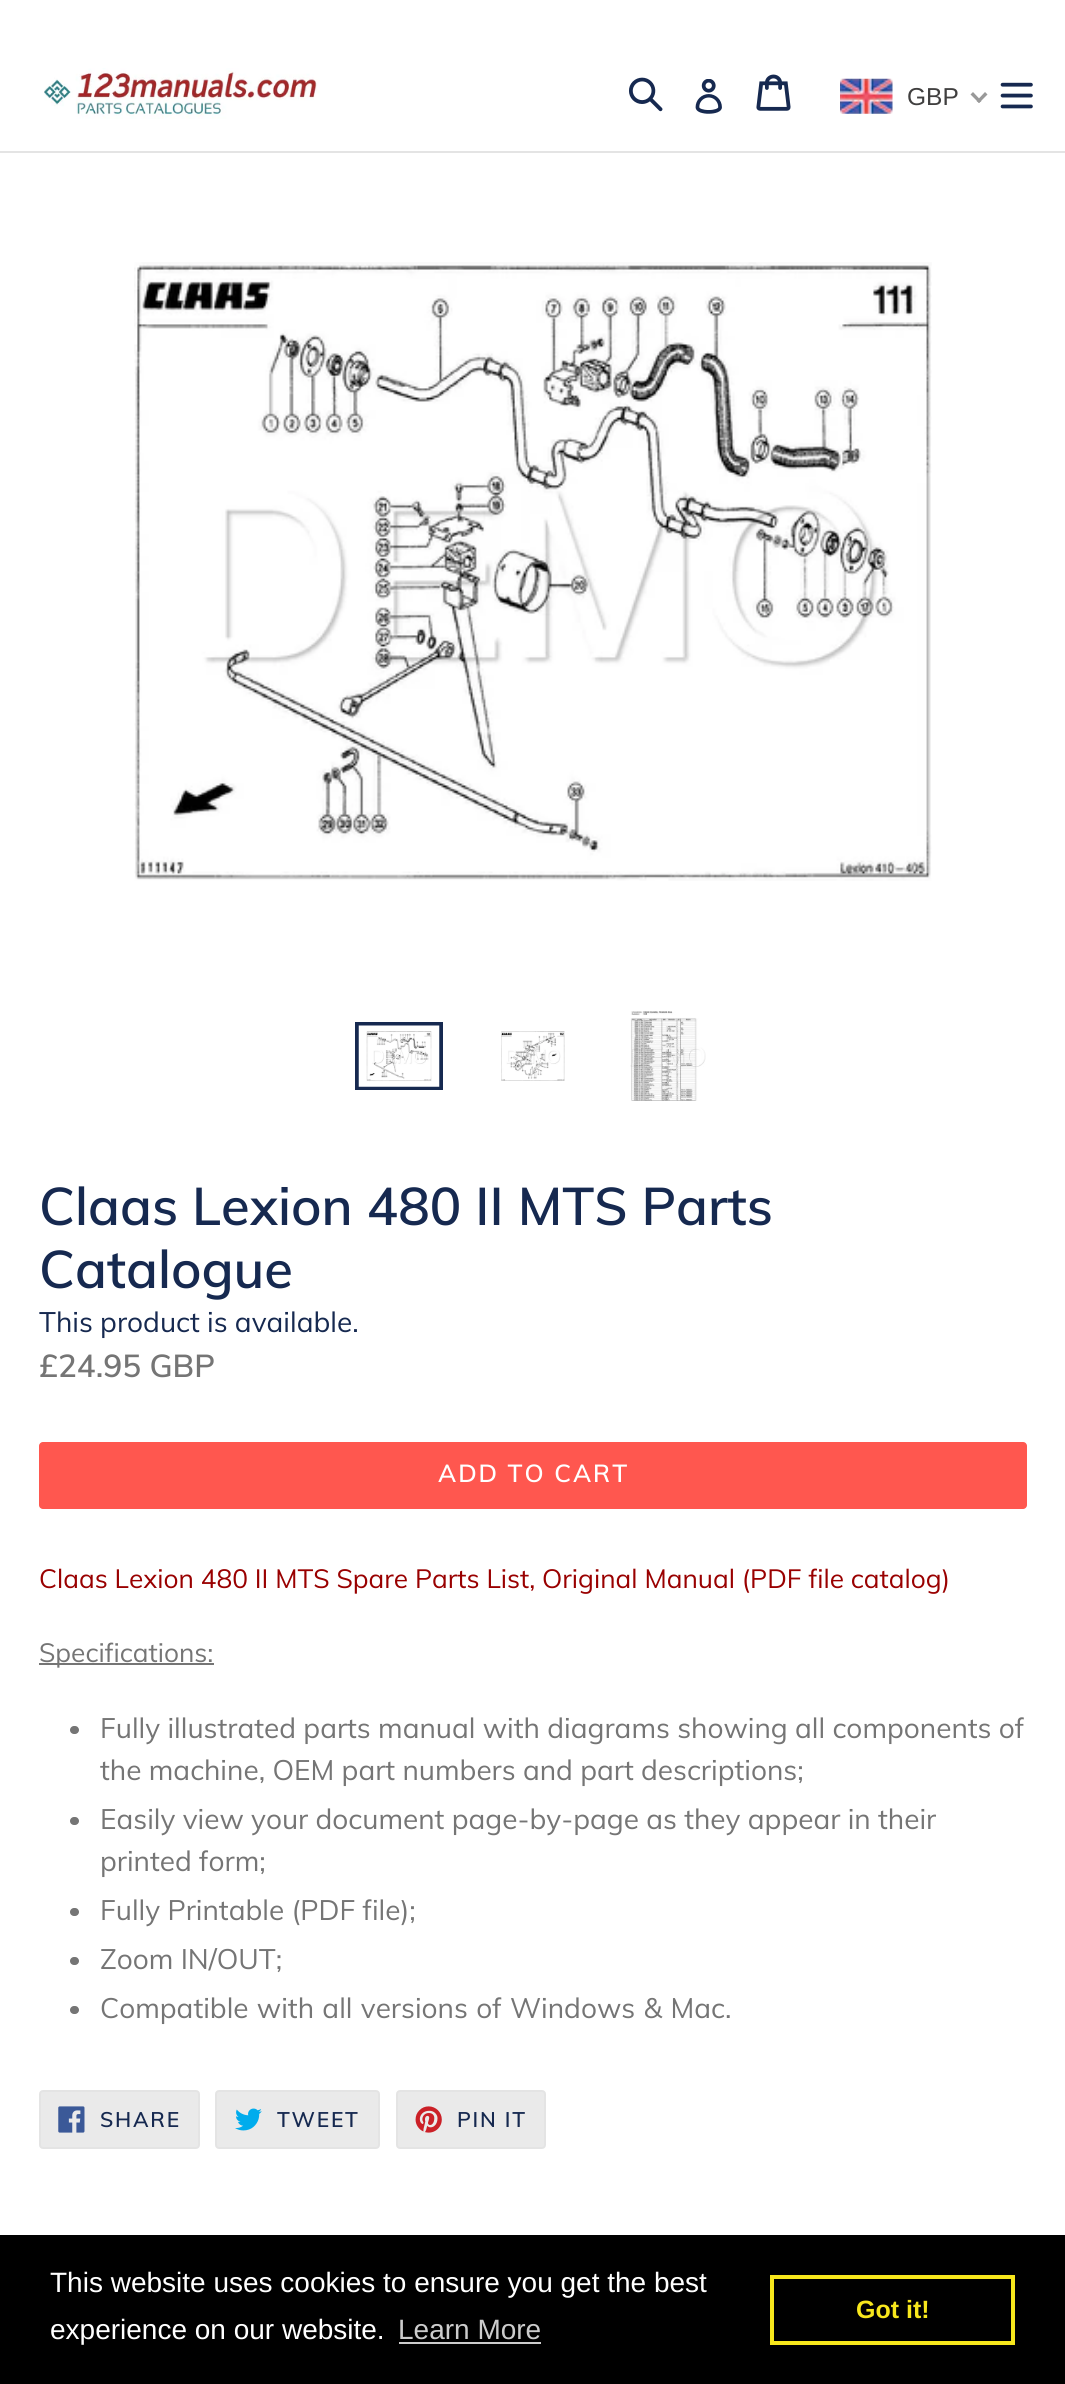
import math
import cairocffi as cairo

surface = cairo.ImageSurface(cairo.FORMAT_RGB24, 1065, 2384)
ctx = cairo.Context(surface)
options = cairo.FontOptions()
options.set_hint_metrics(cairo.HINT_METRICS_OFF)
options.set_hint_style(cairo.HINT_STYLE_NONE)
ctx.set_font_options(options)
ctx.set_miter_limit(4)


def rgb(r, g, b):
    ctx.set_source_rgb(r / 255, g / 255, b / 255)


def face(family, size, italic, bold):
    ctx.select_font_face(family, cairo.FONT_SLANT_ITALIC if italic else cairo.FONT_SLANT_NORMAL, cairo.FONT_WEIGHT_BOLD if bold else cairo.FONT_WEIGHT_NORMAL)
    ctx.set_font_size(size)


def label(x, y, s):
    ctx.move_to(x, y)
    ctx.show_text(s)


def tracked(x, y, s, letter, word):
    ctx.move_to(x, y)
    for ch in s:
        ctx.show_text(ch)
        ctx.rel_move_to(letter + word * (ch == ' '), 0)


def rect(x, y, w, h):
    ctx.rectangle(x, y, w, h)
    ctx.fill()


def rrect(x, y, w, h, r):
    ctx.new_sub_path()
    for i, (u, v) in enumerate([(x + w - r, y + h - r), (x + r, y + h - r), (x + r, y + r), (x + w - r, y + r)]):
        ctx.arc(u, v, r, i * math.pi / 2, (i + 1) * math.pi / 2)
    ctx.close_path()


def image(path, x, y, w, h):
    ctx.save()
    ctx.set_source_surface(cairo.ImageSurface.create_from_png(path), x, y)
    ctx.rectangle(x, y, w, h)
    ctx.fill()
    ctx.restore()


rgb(255, 255, 255)
ctx.paint()
rgb(228, 228, 228)
rect(0, 151, 1065, 2)
image('image0.png', 44, 68, 276, 51)
image('image1.png', 629, 77, 34, 35)
image('image2.png', 695, 79, 27, 35)
image('image3.png', 756, 74, 35, 37)
image('image4.png', 840, 78, 53, 36)
face('Liberation Sans', 24.5, 0, 0)
rgb(64, 63, 63)
label(907, 105, 'GBP')
rgb(153, 153, 153)
ctx.new_path()
ctx.move_to(985, 92)
ctx.line_to(987.5, 94.5)
ctx.line_to(979, 103)
ctx.line_to(976.5, 101)
ctx.close_path()
ctx.fill()
ctx.new_path()
ctx.move_to(973, 92)
ctx.line_to(981.5, 101)
ctx.line_to(979, 103)
ctx.line_to(970.5, 94.5)
ctx.close_path()
ctx.fill()
image('image5.png', 1000, 82, 33, 27)
image('image6.png', 134, 262, 798, 619)
ctx.rectangle(357, 1024, 84, 64)
rgb(22, 41, 80)
ctx.set_line_width(4)
ctx.stroke()
image('image7.png', 358, 1025, 82, 62)
image('image8.png', 501, 1031, 64, 50)
image('image9.png', 630, 1011, 76, 90)
face('Muli SemiBold', 52.5, 0, 0)
label(39, 1225, 'Claas Lexion 480 II MTS Parts')
label(39, 1288, 'Catalogue')
face('Muli', 28, 0, 0)
label(39, 1332, 'This product is available.')
face('Muli SemiBold', 31.5, 0, 0)
rgb(117, 117, 117)
label(39, 1377, '£24.95 GBP')
rgb(255, 87, 79)
rrect(39, 1442, 988, 67, 4)
ctx.fill()
face('Muli SemiBold', 24.5, 0, 0)
rgb(255, 255, 255)
tracked(438, 1482, 'ADD TO CART', 2, 0)
face('Muli', 26.25, 0, 0)
rgb(153, 0, 0)
label(39, 1588, 'Claas Lexion 480 II MTS Spare Parts List, Original Manual (PDF file catalog)')
rgb(117, 117, 117)
rect(39, 1663, 175, 2)
label(39, 1662, 'Specifications:')
rrect(70, 1726, 9, 8, 4)
ctx.fill()
face('Muli', 28, 0, 0)
label(100, 1738, 'Fully illustrated parts manual with diagrams showing all components of')
label(100, 1780, 'the machine, OEM part numbers and part descriptions;')
rrect(70, 1817, 9, 8, 4)
ctx.fill()
label(100, 1829, 'Easily view your document page-by-page as they appear in their')
label(100, 1871, 'printed form;')
rrect(70, 1908, 9, 8, 4)
ctx.fill()
label(100, 1920, 'Fully Printable (PDF file);')
rrect(70, 1957, 9, 8, 4)
ctx.fill()
label(100, 1969, 'Zoom IN/OUT;')
rrect(70, 2006, 9, 8, 4)
ctx.fill()
tracked(100, 2018, 'Compatible with all versions of Windows & Mac.', 0, 1)
rgb(234, 234, 234)
rrect(40, 2091, 159, 57, 3)
ctx.fill_preserve()
rgb(228, 228, 228)
ctx.set_line_width(2)
ctx.stroke()
image('image10.png', 58, 2106, 27, 27)
face('Muli SemiBold', 21, 0, 0)
rgb(22, 41, 80)
tracked(100, 2127, 'SHARE', 1.75, 0)
rgb(234, 234, 234)
rrect(216, 2091, 163, 57, 3)
ctx.fill_preserve()
rgb(228, 228, 228)
ctx.stroke()
image('image11.png', 235, 2108, 27, 23)
rgb(22, 41, 80)
tracked(277, 2127, 'TWEET', 1.75, 0)
rgb(234, 234, 234)
rrect(397, 2091, 148, 57, 3)
ctx.fill_preserve()
rgb(228, 228, 228)
ctx.stroke()
image('image12.png', 415, 2106, 27, 27)
rgb(22, 41, 80)
tracked(457, 2127, 'PIN IT', 1.75, 0)
rgb(0, 0, 0)
rect(0, 2235, 1065, 149)
face('Liberation Sans', 28, 0, 0)
rgb(255, 255, 255)
label(50, 2292, 'This website uses cookies to ensure you get the best')
label(50, 2339, 'experience on our website.')
rgb(204, 204, 204)
label(398, 2339, 'Learn More')
rect(399, 2342, 142, 2)
ctx.rectangle(772, 2277, 241, 66)
rgb(248, 231, 28)
ctx.set_line_width(4)
ctx.stroke()
face('Liberation Sans', 25, 0, 1)
label(856, 2318, 'Got it!')
surface.write_to_png('render.png')
